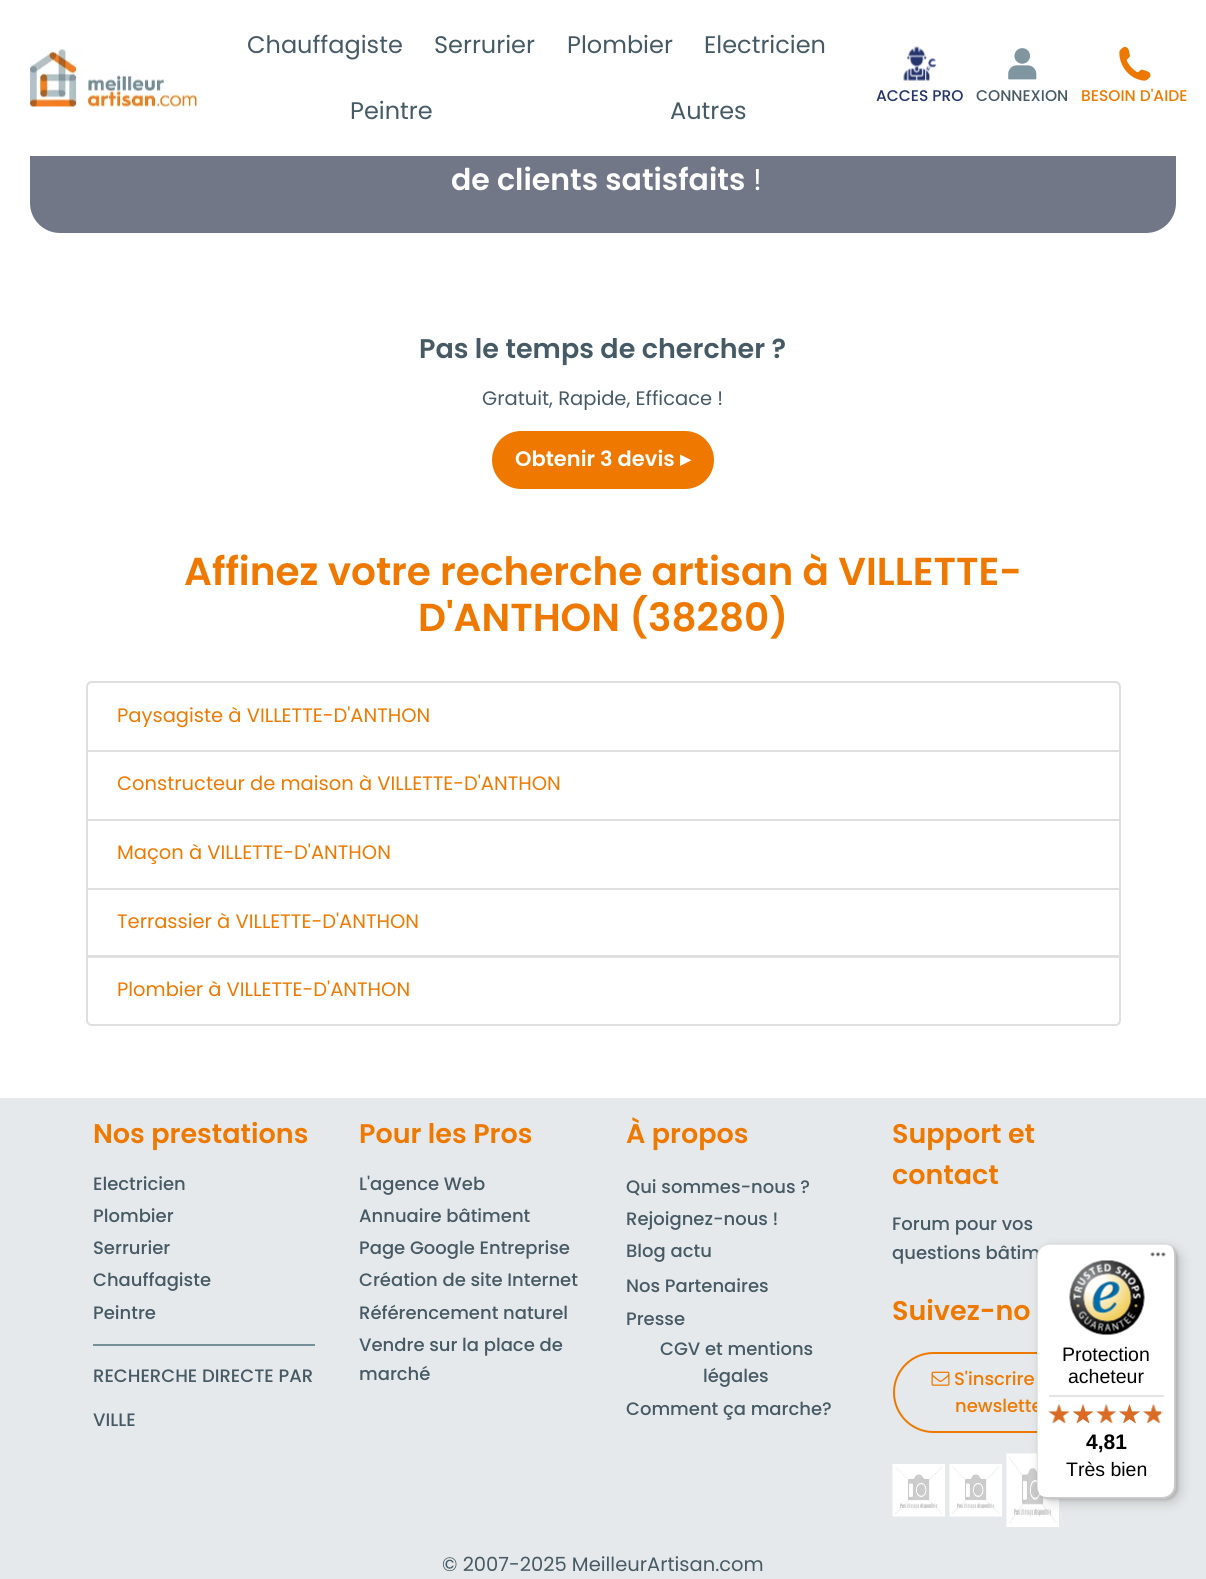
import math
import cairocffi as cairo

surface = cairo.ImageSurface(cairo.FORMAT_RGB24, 1206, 1579)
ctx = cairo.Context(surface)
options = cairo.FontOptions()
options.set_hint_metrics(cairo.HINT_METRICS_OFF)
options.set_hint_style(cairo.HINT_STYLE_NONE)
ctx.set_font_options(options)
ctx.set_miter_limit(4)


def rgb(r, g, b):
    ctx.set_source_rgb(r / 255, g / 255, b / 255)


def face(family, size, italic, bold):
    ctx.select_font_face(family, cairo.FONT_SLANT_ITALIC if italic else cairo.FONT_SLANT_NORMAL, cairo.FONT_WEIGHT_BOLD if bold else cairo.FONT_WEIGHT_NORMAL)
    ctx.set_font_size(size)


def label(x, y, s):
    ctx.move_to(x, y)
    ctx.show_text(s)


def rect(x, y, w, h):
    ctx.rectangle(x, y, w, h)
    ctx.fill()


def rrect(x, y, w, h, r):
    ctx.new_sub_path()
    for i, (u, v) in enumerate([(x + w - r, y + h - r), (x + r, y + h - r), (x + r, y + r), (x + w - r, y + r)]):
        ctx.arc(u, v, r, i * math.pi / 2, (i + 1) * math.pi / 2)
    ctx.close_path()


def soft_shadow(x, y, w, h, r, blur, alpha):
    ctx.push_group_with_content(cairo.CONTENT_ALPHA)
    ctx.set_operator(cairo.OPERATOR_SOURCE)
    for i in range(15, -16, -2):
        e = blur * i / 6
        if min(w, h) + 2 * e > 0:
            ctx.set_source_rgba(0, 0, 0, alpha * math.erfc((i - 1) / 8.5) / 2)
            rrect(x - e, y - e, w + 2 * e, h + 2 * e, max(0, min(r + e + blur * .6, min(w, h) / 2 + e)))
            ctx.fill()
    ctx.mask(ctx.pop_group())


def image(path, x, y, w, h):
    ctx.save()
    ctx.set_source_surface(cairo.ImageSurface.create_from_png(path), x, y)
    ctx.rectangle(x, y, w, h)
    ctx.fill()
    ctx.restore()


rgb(255, 255, 255)
ctx.paint()
rgb(114, 119, 136)
rrect(30, -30, 1146, 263, 30)
ctx.fill()
rgb(255, 255, 255)
rect(30, 0, 1146, 156)
image('image0.png', 30, 49, 167, 58)
face('Poppins', 24, 0, 0)
rgb(70, 90, 101)
label(247, 53, 'Chauffagiste')
label(434, 53, 'Serrurier')
label(567, 53, 'Plombier')
label(704, 53, 'Electricien')
label(350, 119, 'Peintre')
label(670, 119, 'Autres')
image('image1.png', 903, 46, 34, 35)
face('Poppins Medium', 15.5, 0, 0)
rgb(37, 52, 108)
label(876, 101, 'ACCES PRO')
image('image2.png', 1008, 48, 29, 32)
rgb(70, 90, 101)
label(976, 101, 'CONNEXION')
image('image3.png', 1119, 46, 32, 35)
rgb(239, 121, 0)
label(1081, 101, 'BESOIN D\'AIDE')
face('Poppins SemiBold', 30, 0, 0)
rgb(255, 255, 255)
label(451, 190, 'de clients satisfaits')
face('Poppins', 30, 0, 0)
label(753, 190, '!')
face('Poppins SemiBold', 27, 0, 0)
rgb(70, 90, 101)
label(419, 358, 'Pas le temps de chercher ?')
face('Poppins', 19.5, 0, 0)
label(482, 405, 'Gratuit, Rapide, Efficace !')
rgb(239, 121, 0)
rrect(493, 432, 220, 56, 28)
ctx.fill_preserve()
ctx.stroke()
face('Poppins SemiBold', 21, 0, 0)
rgb(255, 255, 255)
label(515, 466, 'Obtenir 3 devis')
face('DejaVu Sans', 21, 0, 1)
label(680, 466, '▸')
face('Poppins SemiBold', 39, 0, 0)
rgb(239, 121, 0)
label(184, 585, 'Affinez votre recherche artisan à VILLETTE-')
label(418, 631, 'D\'ANTHON (38280)')
ctx.new_path()
ctx.move_to(92, 682)
ctx.line_to(1115, 682)
ctx.curve_to(1118, 682, 1120, 684, 1120, 687)
ctx.line_to(1120, 751)
ctx.line_to(87, 751)
ctx.line_to(87, 687)
ctx.curve_to(87, 684, 89, 682, 92, 682)
ctx.close_path()
rgb(223, 223, 223)
ctx.stroke()
face('Poppins', 19.5, 0, 0)
rgb(239, 121, 0)
label(117, 722, 'Paysagiste à VILLETTE-D\'ANTHON')
ctx.rectangle(87, 751, 1033, 69)
rgb(223, 223, 223)
ctx.stroke()
rgb(239, 121, 0)
label(117, 790, 'Constructeur de maison à VILLETTE-D\'ANTHON')
ctx.rectangle(87, 820, 1033, 69)
rgb(223, 223, 223)
ctx.stroke()
rgb(239, 121, 0)
label(117, 859, 'Maçon à VILLETTE-D\'ANTHON')
ctx.rectangle(87, 889, 1033, 67)
rgb(223, 223, 223)
ctx.stroke()
rgb(239, 121, 0)
label(117, 928, 'Terrassier à VILLETTE-D\'ANTHON')
rgb(255, 255, 255)
ctx.new_path()
ctx.move_to(87, 957)
ctx.line_to(1120, 957)
ctx.line_to(1120, 1020)
ctx.curve_to(1120, 1023, 1118, 1025, 1115, 1025)
ctx.line_to(92, 1025)
ctx.curve_to(89, 1025, 87, 1023, 87, 1020)
ctx.close_path()
ctx.fill_preserve()
rgb(223, 223, 223)
ctx.stroke()
rgb(239, 121, 0)
label(117, 996, 'Plombier à VILLETTE-D\'ANTHON')
rgb(230, 233, 235)
rect(0, 1098, 1206, 481)
face('Poppins SemiBold', 27, 0, 0)
rgb(239, 121, 0)
label(93, 1143, 'Nos prestations')
face('Poppins Medium', 18, 0, 0)
rgb(70, 90, 101)
label(93, 1190, 'Electricien')
label(93, 1222, 'Plombier')
label(93, 1254, 'Serrurier')
label(93, 1286, 'Chauffagiste')
label(93, 1319, 'Peintre')
rgb(118, 144, 154)
rect(93, 1344, 222, 2)
rgb(70, 90, 101)
label(93, 1382, 'RECHERCHE DIRECTE PAR')
label(93, 1426, 'VILLE')
face('Poppins SemiBold', 27, 0, 0)
rgb(239, 121, 0)
label(359, 1143, 'Pour les Pros')
face('Poppins Medium', 18, 0, 0)
rgb(70, 90, 101)
label(359, 1190, 'L\'agence Web')
label(359, 1222, 'Annuaire bâtiment')
label(359, 1254, 'Page Google Entreprise')
label(359, 1286, 'Création de site Internet')
label(359, 1319, 'Référencement naturel')
label(359, 1351, 'Vendre sur la place de')
label(359, 1380, 'marché')
face('Poppins SemiBold', 27, 0, 0)
rgb(239, 121, 0)
label(626, 1143, 'À propos')
face('Poppins Medium', 18, 0, 0)
rgb(70, 90, 101)
label(626, 1193, 'Qui sommes-nous ?')
label(626, 1225, 'Rejoignez-nous !')
label(626, 1257, 'Blog actu')
label(626, 1292, 'Nos Partenaires')
label(626, 1325, 'Presse')
label(660, 1355, 'CGV et mentions')
label(703, 1382, 'légales')
label(626, 1415, 'Comment ça marche?')
face('Poppins SemiBold', 27, 0, 0)
rgb(239, 121, 0)
label(892, 1143, 'Support et')
label(892, 1184, 'contact')
face('Poppins Medium', 18, 0, 0)
rgb(70, 90, 101)
label(892, 1230, 'Forum pour vos')
label(892, 1259, 'questions bâtim')
face('Poppins SemiBold', 27, 0, 0)
rgb(239, 121, 0)
label(892, 1320, 'Suivez-no')
rrect(894, 1353, 218, 79, 39.5)
ctx.stroke()
image('image4.png', 931, 1371, 19, 15)
face('Poppins Medium', 18, 0, 0)
label(954, 1385, 'S\'inscrire')
label(955, 1412, 'newslette')
image('image5.png', 892, 1464, 53, 53)
image('image6.png', 949, 1464, 53, 53)
image('image7.png', 1006, 1453, 53, 74)
face('Poppins', 19.5, 0, 0)
rgb(70, 90, 101)
label(442, 1571, '© 2007-2025 MeilleurArtisan.com')
rgb(0, 0, 0)
soft_shadow(1041, 1248, 140, 255, 12, 6, 0.15)
soft_shadow(1038, 1245, 140, 255, 12, 1.5, 0.15)
rgb(255, 255, 255)
rrect(1037, 1244, 139, 255, 12)
ctx.fill()
ctx.set_source_rgba(0, 0, 0, 0.1)
ctx.new_path()
ctx.move_to(1050, 1245)
ctx.line_to(1166, 1245)
ctx.line_to(1171, 1246)
ctx.curve_to(1169, 1245, 1166, 1244, 1164, 1244)
ctx.line_to(1049, 1244)
ctx.curve_to(1042, 1244, 1037, 1249, 1037, 1256)
ctx.line_to(1037, 1487)
ctx.curve_to(1037, 1490, 1038, 1493, 1040, 1495)
ctx.curve_to(1039, 1493, 1038, 1491, 1038, 1488)
ctx.line_to(1038, 1257)
ctx.curve_to(1038, 1250, 1043, 1245, 1050, 1245)
ctx.close_path()
ctx.fill()
ctx.set_source_rgba(0, 0, 0, 0.2)
ctx.new_path()
ctx.move_to(1040, 1495)
ctx.curve_to(1042, 1497, 1045, 1499, 1049, 1499)
ctx.line_to(1164, 1499)
ctx.curve_to(1171, 1499, 1176, 1494, 1176, 1487)
ctx.line_to(1176, 1256)
ctx.curve_to(1176, 1252, 1174, 1249, 1172, 1247)
ctx.curve_to(1173, 1249, 1174, 1251, 1174, 1254)
ctx.line_to(1174, 1485)
ctx.curve_to(1174, 1492, 1169, 1497, 1162, 1497)
ctx.line_to(1047, 1497)
ctx.curve_to(1044, 1497, 1042, 1496, 1040, 1495)
ctx.close_path()
ctx.fill()
ctx.set_source_rgba(0.196, 0.196, 0.196, 0.2)
ctx.new_path()
ctx.move_to(1040, 1495)
ctx.curve_to(1042, 1497, 1045, 1499, 1049, 1499)
ctx.line_to(1164, 1499)
ctx.curve_to(1171, 1499, 1176, 1494, 1176, 1487)
ctx.line_to(1176, 1256)
ctx.curve_to(1176, 1253, 1175, 1250, 1173, 1248)
ctx.curve_to(1174, 1250, 1175, 1252, 1175, 1255)
ctx.line_to(1175, 1486)
ctx.curve_to(1175, 1492, 1170, 1498, 1163, 1498)
ctx.line_to(1048, 1498)
ctx.curve_to(1045, 1498, 1042, 1497, 1040, 1495)
ctx.close_path()
ctx.fill()
ctx.set_source_rgba(1, 1, 1, 0.3)
ctx.new_path()
ctx.move_to(1040, 1495)
ctx.curve_to(1042, 1497, 1045, 1499, 1049, 1499)
ctx.line_to(1164, 1499)
ctx.curve_to(1171, 1499, 1176, 1494, 1176, 1487)
ctx.line_to(1176, 1256)
ctx.curve_to(1176, 1253, 1175, 1250, 1173, 1248)
ctx.curve_to(1174, 1250, 1175, 1252, 1175, 1255)
ctx.line_to(1175, 1486)
ctx.curve_to(1175, 1492, 1170, 1498, 1163, 1498)
ctx.line_to(1048, 1498)
ctx.curve_to(1045, 1498, 1042, 1497, 1040, 1495)
ctx.close_path()
ctx.fill()
image('image8.png', 1150, 1252, 16, 5)
image('image9.png', 1069, 1260, 76, 75)
face('Liberation Sans', 19.5, 0, 0)
rgb(0, 0, 0)
label(1062, 1361, 'Protection')
label(1068, 1383, 'acheteur')
rgb(229, 229, 229)
rect(1049, 1395, 115, 2)
image('image10.png', 1048, 1404, 22, 20)
image('image11.png', 1073, 1404, 20, 19)
image('image12.png', 1096, 1404, 20, 20)
image('image13.png', 1119, 1404, 21, 19)
image('image14.png', 1143, 1404, 21, 20)
image('image15.png', 1048, 1404, 22, 19)
image('image16.png', 1073, 1404, 20, 20)
image('image17.png', 1096, 1404, 20, 19)
image('image18.png', 1119, 1404, 21, 20)
image('image19.png', 1143, 1404, 18, 19)
face('Liberation Sans', 21, 0, 1)
rgb(0, 0, 0)
label(1086, 1449, '4,81')
face('Liberation Sans', 19.5, 0, 0)
label(1066, 1476, 'Très bien')
surface.write_to_png('render.png')
